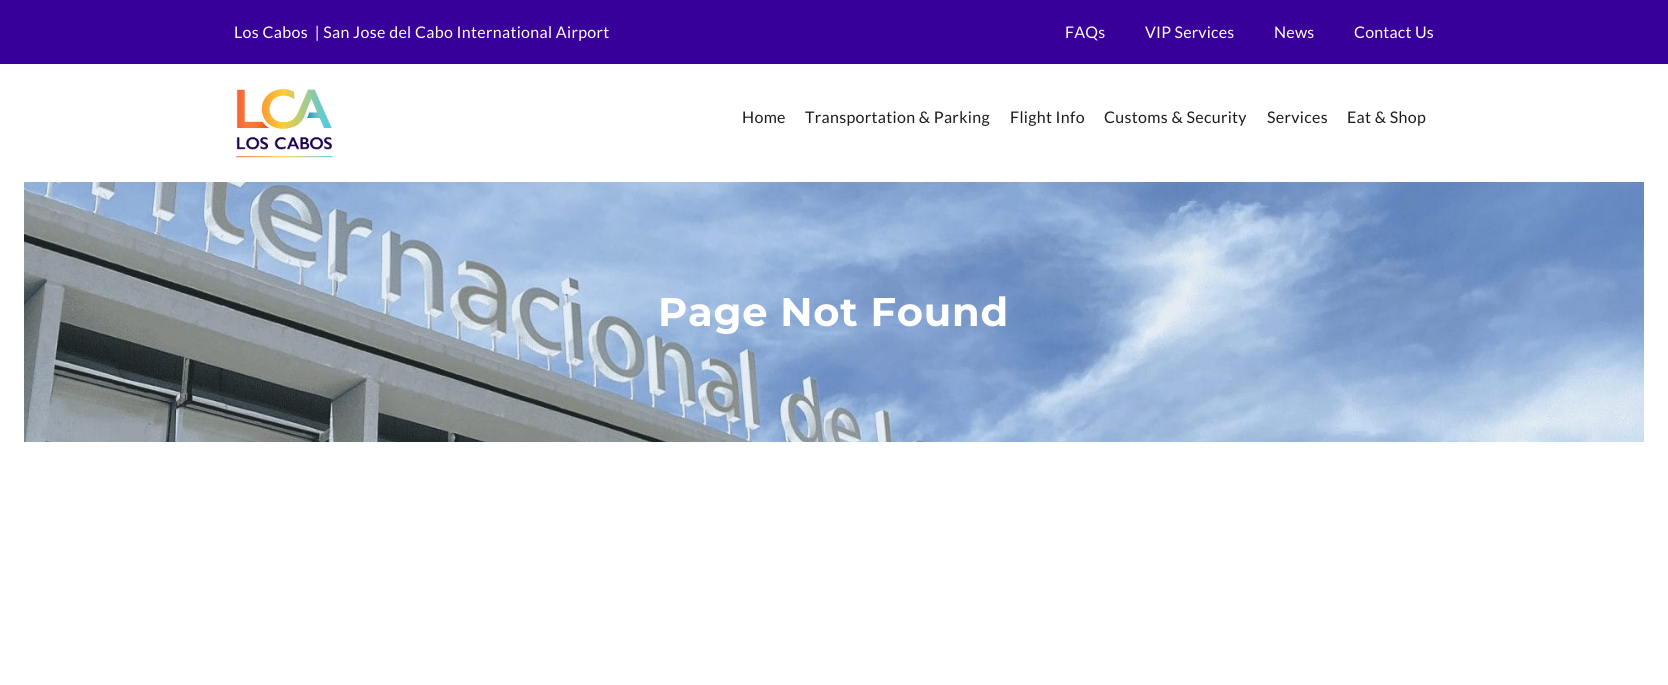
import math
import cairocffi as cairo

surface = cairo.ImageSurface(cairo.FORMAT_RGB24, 1668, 685)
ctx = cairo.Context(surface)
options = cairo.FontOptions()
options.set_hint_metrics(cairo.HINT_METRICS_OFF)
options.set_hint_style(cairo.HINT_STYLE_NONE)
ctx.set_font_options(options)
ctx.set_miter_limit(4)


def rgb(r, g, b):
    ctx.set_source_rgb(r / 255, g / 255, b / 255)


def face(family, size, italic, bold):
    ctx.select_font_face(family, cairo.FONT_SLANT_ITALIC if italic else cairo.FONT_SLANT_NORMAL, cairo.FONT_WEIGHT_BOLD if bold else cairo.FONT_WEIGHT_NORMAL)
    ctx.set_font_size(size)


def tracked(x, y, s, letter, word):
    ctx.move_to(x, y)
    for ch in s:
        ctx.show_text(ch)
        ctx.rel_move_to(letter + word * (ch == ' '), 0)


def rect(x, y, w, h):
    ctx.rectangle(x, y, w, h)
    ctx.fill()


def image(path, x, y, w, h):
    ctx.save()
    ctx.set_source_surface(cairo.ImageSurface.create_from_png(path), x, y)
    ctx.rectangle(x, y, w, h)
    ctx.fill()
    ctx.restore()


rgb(255, 255, 255)
ctx.paint()
rgb(57, 0, 153)
rect(0, 0, 1668, 64)
face('Lato', 16, 0, 0)
rgb(255, 255, 255)
tracked(234, 38, 'Los Cabos  | San Jose del Cabo International Airport', 0.32, 0)
tracked(1065, 38, 'FAQs', 0.2, 0)
tracked(1145, 38, 'VIP Services', 0.2, 0)
tracked(1274, 38, 'News', 0.2, 0)
tracked(1354, 38, 'Contact Us', 0.2, 0)
image('image0.png', 236, 88, 97, 70)
rgb(28, 28, 28)
tracked(742, 123, 'Home', 0.32, 0)
tracked(805, 123, 'Transportation & Parking', 0.32, 0)
tracked(1010, 123, 'Flight Info', 0.32, 0)
tracked(1104, 123, 'Customs & Security', 0.32, 0)
tracked(1267, 123, 'Services', 0.32, 0)
tracked(1347, 123, 'Eat & Shop', 0.32, 0)
image('image1.png', 24, 182, 1620, 260)
face('Montserrat', 40, 0, 1)
rgb(255, 255, 255)
tracked(658, 326, 'Page Not Found', 0.75, 0)
surface.write_to_png('render.png')
